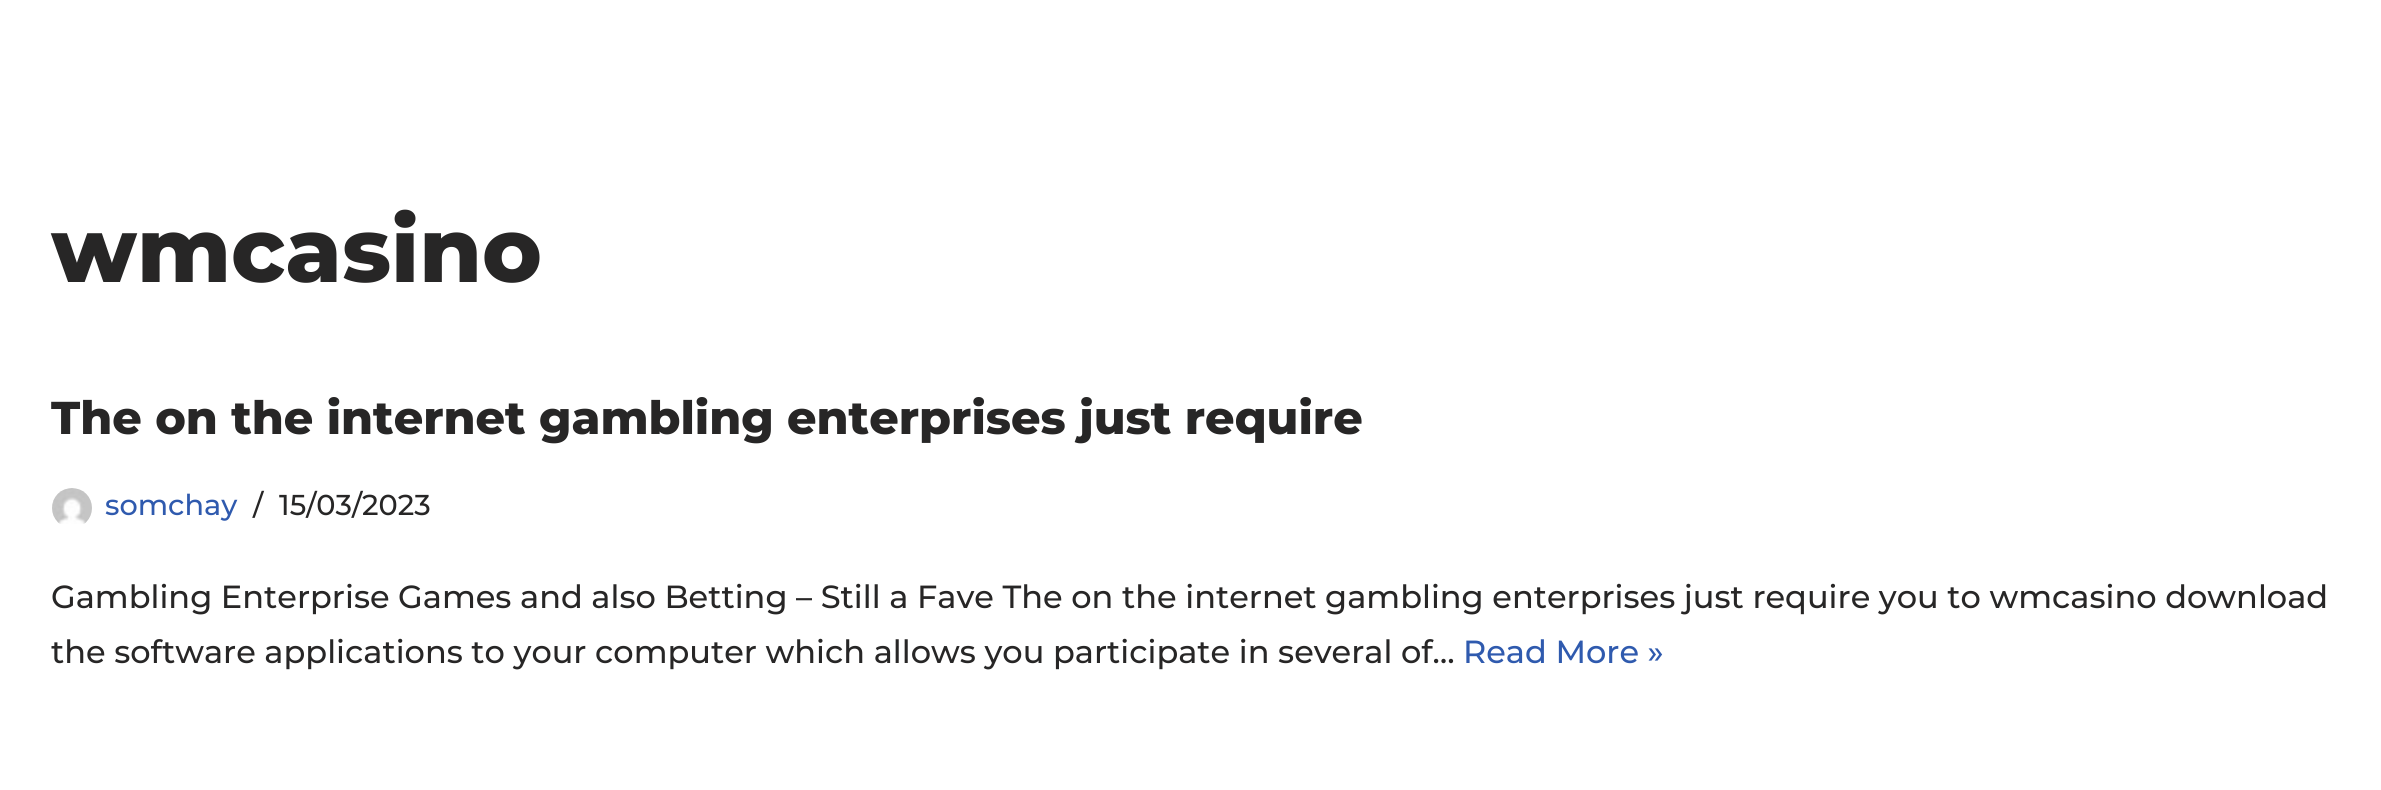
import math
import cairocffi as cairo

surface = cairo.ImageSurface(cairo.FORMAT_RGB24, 2381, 790)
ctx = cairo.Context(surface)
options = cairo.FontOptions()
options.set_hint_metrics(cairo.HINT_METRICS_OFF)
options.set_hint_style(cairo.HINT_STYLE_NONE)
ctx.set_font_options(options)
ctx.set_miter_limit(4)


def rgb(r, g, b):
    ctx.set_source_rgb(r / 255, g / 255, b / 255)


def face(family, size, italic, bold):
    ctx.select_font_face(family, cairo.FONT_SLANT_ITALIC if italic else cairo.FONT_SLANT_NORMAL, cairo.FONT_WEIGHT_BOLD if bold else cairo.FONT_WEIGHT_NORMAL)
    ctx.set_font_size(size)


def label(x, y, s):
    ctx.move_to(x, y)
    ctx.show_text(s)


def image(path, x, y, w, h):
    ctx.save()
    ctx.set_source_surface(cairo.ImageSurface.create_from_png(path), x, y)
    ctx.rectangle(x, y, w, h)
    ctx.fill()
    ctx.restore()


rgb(255, 255, 255)
ctx.paint()
face('Montserrat ExtraBold', 90, 0, 0)
rgb(39, 38, 38)
label(51, 282, 'wmcasino')
face('Montserrat ExtraBold', 46, 0, 0)
label(51, 434, 'The on the internet gambling enterprises just require')
image('image0.png', 52, 488, 40, 36)
face('Montserrat Medium', 28.75, 0, 0)
rgb(47, 90, 174)
label(105, 515, 'somchay')
rgb(39, 38, 38)
label(253, 515, '/')
label(279, 515, '15/03/2023')
face('Montserrat Medium', 32, 0, 0)
label(51, 608, 'Gambling Enterprise Games and also Betting – Still a Fave The on the internet gambling enterprises just require you to wmcasino download')
label(51, 663, 'the software applications to your computer which allows you participate in several of…')
rgb(47, 90, 174)
label(1463, 663, 'Read More »')
surface.write_to_png('render.png')
